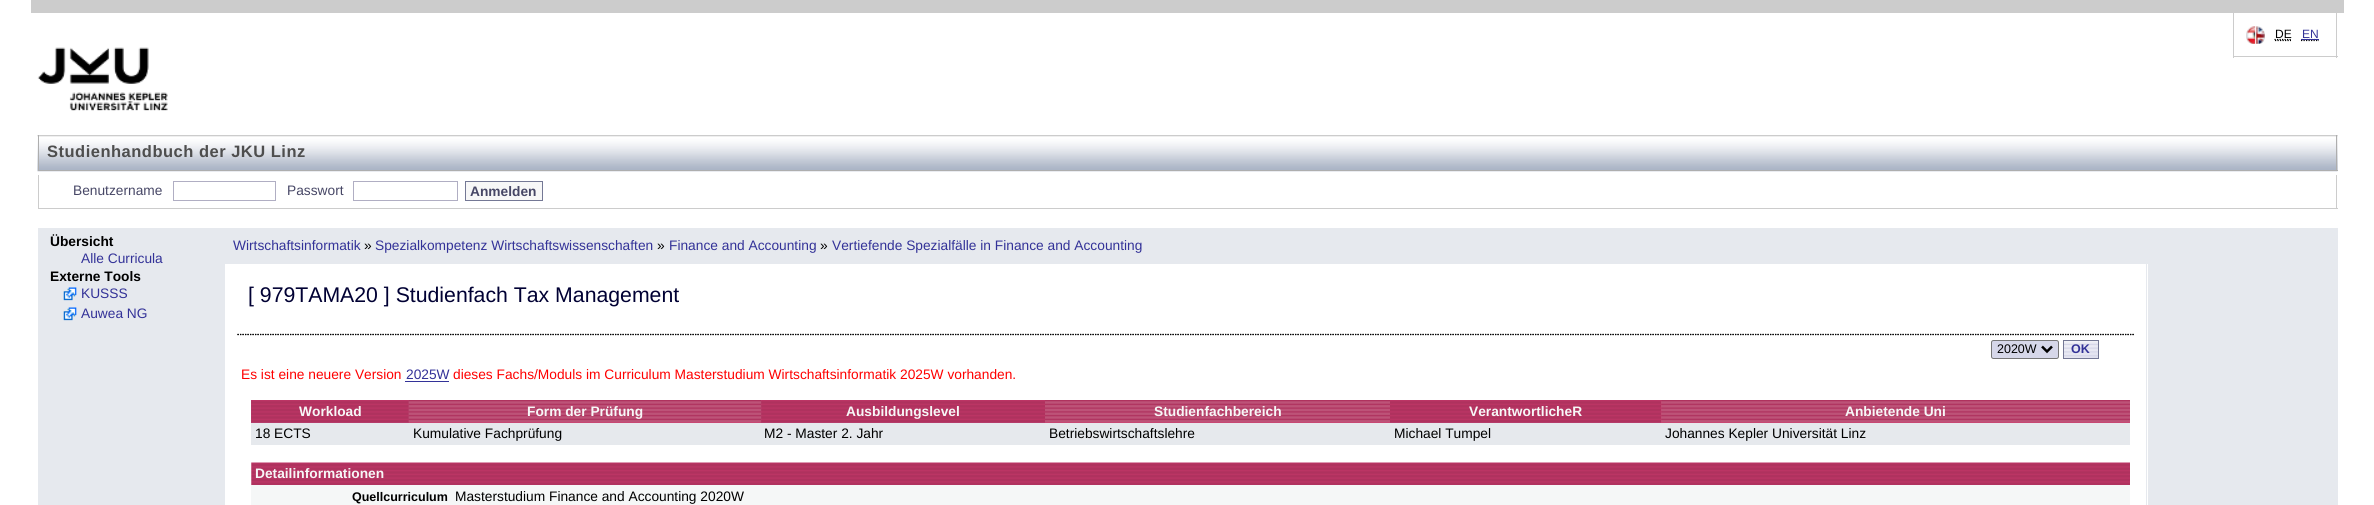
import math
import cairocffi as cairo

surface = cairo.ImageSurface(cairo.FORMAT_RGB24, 2374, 505)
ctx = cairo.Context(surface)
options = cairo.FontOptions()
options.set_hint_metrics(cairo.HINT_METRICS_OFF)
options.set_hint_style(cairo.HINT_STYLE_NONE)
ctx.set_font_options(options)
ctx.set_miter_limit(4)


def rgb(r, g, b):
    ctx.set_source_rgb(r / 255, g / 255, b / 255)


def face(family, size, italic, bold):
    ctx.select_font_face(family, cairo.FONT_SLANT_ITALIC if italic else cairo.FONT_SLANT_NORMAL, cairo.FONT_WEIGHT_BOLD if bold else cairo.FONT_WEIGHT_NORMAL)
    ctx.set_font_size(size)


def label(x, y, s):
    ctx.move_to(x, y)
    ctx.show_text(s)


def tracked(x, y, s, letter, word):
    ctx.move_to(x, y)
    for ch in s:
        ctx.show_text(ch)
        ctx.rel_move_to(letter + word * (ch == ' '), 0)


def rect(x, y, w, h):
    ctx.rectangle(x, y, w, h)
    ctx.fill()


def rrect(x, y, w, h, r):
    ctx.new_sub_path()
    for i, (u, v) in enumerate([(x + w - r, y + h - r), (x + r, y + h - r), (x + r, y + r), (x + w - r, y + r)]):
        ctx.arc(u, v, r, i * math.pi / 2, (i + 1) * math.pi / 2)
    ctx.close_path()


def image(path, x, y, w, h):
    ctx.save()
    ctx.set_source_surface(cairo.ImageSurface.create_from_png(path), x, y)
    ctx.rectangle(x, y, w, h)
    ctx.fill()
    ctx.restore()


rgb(255, 255, 255)
ctx.paint()
rgb(204, 204, 204)
rect(31, 0, 2313, 13)
rect(2336, 13, 1, 45)
rect(2233, 56, 105, 1)
rect(2233, 13, 1, 45)
image('image0.png', 2246, 26, 19, 18)
face('Liberation Sans', 12, 0, 0)
rgb(0, 0, 0)
label(2275, 38, 'DE')
ctx.new_path()
ctx.move_to(2275, 40.5)
ctx.line_to(2291, 40.5)
ctx.move_to(2274.5, 39.5)
ctx.line_to(2292, 39.5)
ctx.set_line_width(1.2)
ctx.set_dash([1.25, 1.25])
ctx.stroke()
rgb(51, 50, 152)
label(2302, 38, 'EN')
ctx.new_path()
ctx.move_to(2301, 40.5)
ctx.line_to(2319, 40.5)
rgb(0, 0, 0)
ctx.stroke()
ctx.new_path()
ctx.move_to(2301.5, 39.5)
ctx.line_to(2319, 39.5)
rgb(51, 50, 152)
ctx.stroke()
rect(2301, 39, 18, 1)
image('image1.png', 37, 47, 131, 64)
rgb(231, 231, 231)
rect(2337, 135, 1, 35)
image('image2.png', 37, 135, 2301, 37)
rgb(174, 174, 174)
rect(2336, 135, 1, 36)
rect(38, 170, 2300, 1)
rect(38, 135, 1, 36)
face('Liberation Sans', 16.5, 0, 1)
rgb(78, 78, 78)
tracked(47, 157, 'Studienhandbuch der JKU Linz', 0.5, 0)
rgb(204, 204, 204)
rect(2336, 175, 1, 34)
rect(38, 208, 2300, 1)
rect(38, 175, 1, 34)
face('Liberation Sans', 13.75, 0, 0)
rgb(71, 71, 102)
label(73, 195, 'Benutzername')
ctx.rectangle(173.5, 181.5, 102, 19)
rgb(176, 174, 195)
ctx.set_line_width(1)
ctx.set_dash([])
ctx.stroke()
rgb(71, 71, 102)
label(287, 195, 'Passwort')
ctx.rectangle(353.5, 181.5, 104, 19)
rgb(176, 174, 195)
ctx.stroke()
rgb(247, 247, 247)
ctx.rectangle(465.5, 181.5, 77, 19)
ctx.fill_preserve()
rgb(116, 120, 149)
ctx.stroke()
face('Liberation Sans', 13.75, 0, 1)
rgb(71, 71, 102)
label(470, 196, 'Anmelden')
rgb(230, 233, 238)
rect(38, 228, 187, 277)
rgb(0, 0, 0)
label(50, 246, 'Übersicht')
face('Liberation Sans', 13.75, 0, 0)
rgb(51, 50, 152)
label(81, 263, 'Alle Curricula')
face('Liberation Sans', 13.75, 0, 1)
rgb(0, 0, 0)
label(50, 281, 'Externe Tools')
image('image3.png', 63, 287, 14, 14)
face('Liberation Sans', 13.75, 0, 0)
rgb(51, 50, 152)
label(81, 298, 'KUSSS')
image('image4.png', 63, 307, 14, 14)
label(81, 318, 'Auwea NG')
rgb(230, 233, 238)
rect(225, 228, 2113, 36)
rgb(51, 50, 152)
label(233, 250, 'Wirtschaftsinformatik')
rgb(0, 0, 0)
label(364, 250, '»')
rgb(51, 50, 152)
label(375, 250, 'Spezialkompetenz Wirtschaftswissenschaften')
rgb(0, 0, 0)
label(657, 250, '»')
rgb(51, 50, 152)
label(669, 250, 'Finance and Accounting')
rgb(0, 0, 0)
label(820, 250, '»')
rgb(51, 50, 152)
label(832, 250, 'Vertiefende Spezialfälle in Finance and Accounting')
rgb(230, 233, 238)
rect(2146, 263, 1, 242)
ctx.new_path()
ctx.move_to(237.5, 334.5)
ctx.line_to(2134, 334.5)
rgb(0, 0, 0)
ctx.set_line_width(1.2)
ctx.set_dash([1.25, 1.25])
ctx.stroke()
ctx.new_path()
ctx.move_to(237.5, 334.5)
ctx.line_to(2134, 334.5)
ctx.stroke()
face('Liberation Sans', 21.25, 0, 0)
rgb(0, 0, 51)
label(248, 302, '[ 979TAMA20 ] Studienfach Tax Management')
rgb(214, 215, 233)
rrect(1991.5, 340.5, 67, 18, 2)
ctx.fill_preserve()
rgb(118, 118, 118)
ctx.set_line_width(1)
ctx.set_dash([])
ctx.stroke()
ctx.new_path()
ctx.move_to(2042, 346.5)
ctx.line_to(2047, 351.5)
ctx.line_to(2052, 346.5)
rgb(0, 0, 0)
ctx.set_line_width(2.5)
ctx.stroke()
face('Liberation Sans', 12.5, 0, 0)
label(1997, 353, '2020W')
image('image5.png', 2064, 341, 34, 17)
ctx.rectangle(2063.5, 340.5, 35, 18)
rgb(116, 120, 149)
ctx.set_line_width(1)
ctx.stroke()
face('Liberation Sans', 12.5, 0, 1)
rgb(51, 50, 152)
label(2071, 353, 'OK')
face('Liberation Sans', 13.75, 0, 0)
rgb(255, 0, 0)
label(241, 379, 'Es ist eine neuere Version')
rgb(51, 50, 152)
label(406, 379, '2025W')
rect(405, 381, 44, 1)
rgb(255, 0, 0)
label(453, 379, 'dieses Fachs/Moduls im Curriculum Masterstudium Wirtschaftsinformatik 2025W vorhanden.')
rgb(178, 67, 114)
rect(251, 400, 158, 23)
image('image6.png', 251, 400, 158, 23)
face('Liberation Sans', 13.75, 0, 1)
rgb(247, 247, 247)
label(299, 416, 'Workload')
rgb(208, 59, 111)
rect(409, 422, 352, 1)
image('image7.png', 408, 400, 353, 23)
rgb(247, 247, 247)
label(527, 416, 'Form der Prüfung')
rgb(178, 67, 114)
rect(761, 400, 284, 23)
image('image8.png', 761, 400, 284, 23)
rgb(247, 247, 247)
label(846, 416, 'Ausbildungslevel')
rgb(208, 59, 111)
rect(1045, 422, 345, 1)
image('image9.png', 1045, 400, 345, 23)
rgb(247, 247, 247)
label(1154, 416, 'Studienfachbereich')
rgb(178, 67, 114)
rect(1390, 422, 271, 1)
image('image10.png', 1390, 400, 271, 23)
rgb(247, 247, 247)
label(1469, 416, 'VerantwortlicheR')
rgb(208, 59, 111)
rect(1661, 400, 469, 23)
image('image11.png', 1661, 400, 469, 23)
rgb(247, 247, 247)
label(1845, 416, 'Anbietende Uni')
rgb(230, 233, 237)
rect(251, 423, 1879, 22)
face('Liberation Sans', 13.75, 0, 0)
rgb(0, 0, 0)
label(255, 438, '18 ECTS')
label(413, 438, 'Kumulative Fachprüfung')
label(764, 438, 'M2 - Master 2. Jahr')
label(1049, 438, 'Betriebswirtschaftslehre')
label(1394, 438, 'Michael Tumpel')
label(1665, 438, 'Johannes Kepler Universität Linz')
image('image12.png', 251, 462, 1879, 23)
face('Liberation Sans', 13.75, 0, 1)
rgb(247, 247, 247)
label(255, 478, 'Detailinformationen')
rgb(245, 247, 247)
rect(251, 485, 1879, 20)
face('Liberation Sans', 12.5, 0, 1)
rgb(0, 0, 0)
label(352, 501, 'Quellcurriculum')
face('Liberation Sans', 13.75, 0, 0)
label(455, 501, 'Masterstudium Finance and Accounting 2020W')
rgb(230, 233, 238)
rect(2148, 264, 190, 241)
surface.write_to_png('render.png')
